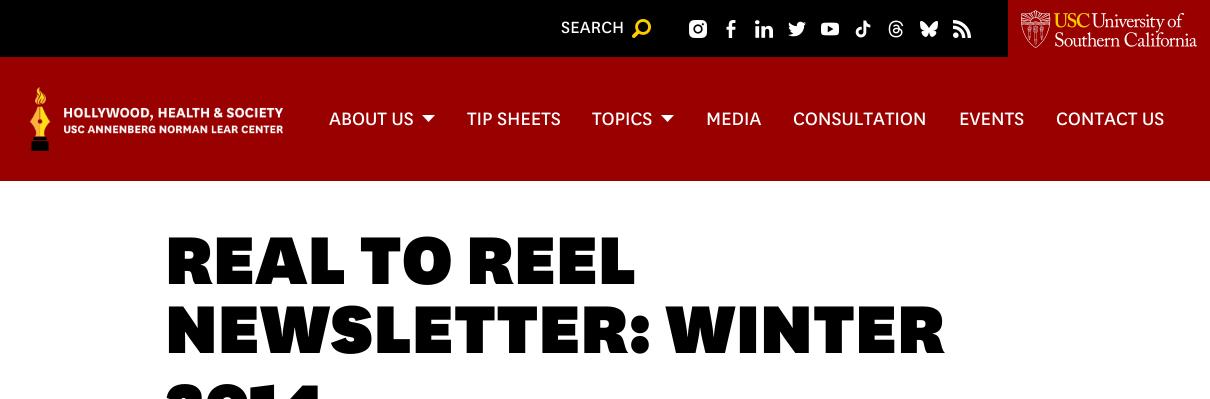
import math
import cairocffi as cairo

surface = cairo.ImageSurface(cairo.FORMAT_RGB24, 1210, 399)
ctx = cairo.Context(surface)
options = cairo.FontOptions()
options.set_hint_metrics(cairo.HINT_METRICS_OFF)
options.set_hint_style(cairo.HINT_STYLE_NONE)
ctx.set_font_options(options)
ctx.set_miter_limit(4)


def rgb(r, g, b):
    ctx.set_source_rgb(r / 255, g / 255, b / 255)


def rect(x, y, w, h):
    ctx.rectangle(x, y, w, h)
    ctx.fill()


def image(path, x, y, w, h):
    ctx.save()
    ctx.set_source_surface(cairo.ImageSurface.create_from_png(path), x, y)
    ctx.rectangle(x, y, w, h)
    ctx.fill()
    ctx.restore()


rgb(255, 255, 255)
ctx.paint()
rgb(0, 0, 0)
rect(0, 0, 1008, 57)
image('image0.png', 561, 21, 62, 13)
image('image1.png', 632, 19, 19, 19)
image('image2.png', 689, 20, 18, 18)
image('image3.png', 726, 20, 10, 18)
image('image4.png', 755, 20, 18, 18)
image('image5.png', 788, 21, 18, 16)
image('image6.png', 821, 22, 18, 14)
image('image7.png', 855, 20, 16, 18)
image('image8.png', 888, 20, 16, 18)
image('image9.png', 920, 21, 18, 16)
image('image10.png', 953, 20, 18, 18)
rgb(153, 0, 0)
rect(1008, 0, 202, 57)
image('image11.png', 1021, 10, 176, 38)
rect(0, 57, 1210, 124)
image('image12.png', 30, 87, 253, 64)
image('image13.png', 329, 112, 84, 14)
rgb(255, 255, 255)
ctx.set_fill_rule(cairo.FILL_RULE_EVEN_ODD)
ctx.new_path()
ctx.move_to(428.5, 122)
ctx.line_to(422, 115)
ctx.line_to(435, 115)
ctx.close_path()
ctx.fill()
image('image14.png', 467, 112, 93, 14)
image('image15.png', 592, 112, 60, 14)
ctx.new_path()
ctx.move_to(667.5, 122)
ctx.line_to(661, 115)
ctx.line_to(674, 115)
ctx.close_path()
ctx.fill()
image('image16.png', 707, 112, 55, 13)
image('image17.png', 793, 112, 132, 14)
image('image18.png', 960, 112, 64, 14)
image('image19.png', 1056, 112, 108, 14)
image('image20.png', 168, 236, 467, 49)
image('image21.png', 168, 305, 777, 49)
image('image22.png', 166, 384, 152, 15)
surface.write_to_png('render.png')
